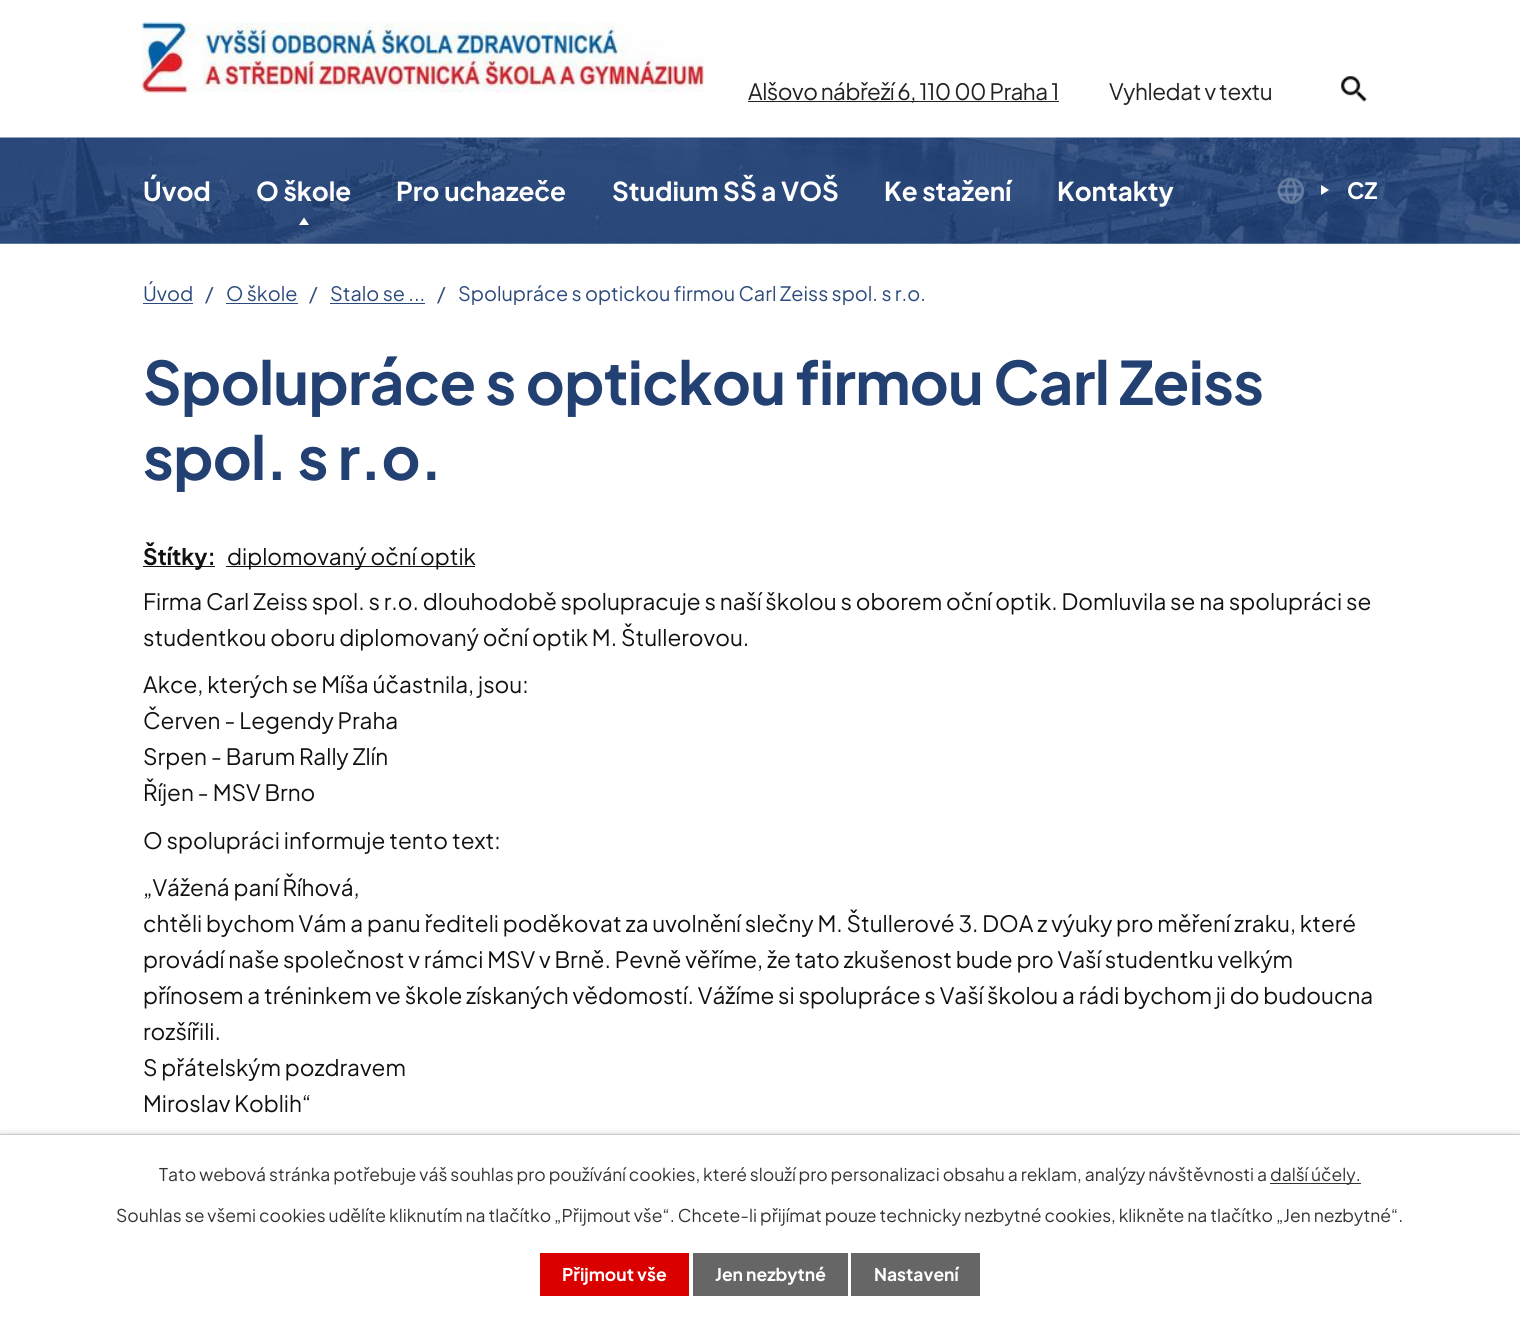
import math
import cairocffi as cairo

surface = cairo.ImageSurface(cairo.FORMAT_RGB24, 1520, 1320)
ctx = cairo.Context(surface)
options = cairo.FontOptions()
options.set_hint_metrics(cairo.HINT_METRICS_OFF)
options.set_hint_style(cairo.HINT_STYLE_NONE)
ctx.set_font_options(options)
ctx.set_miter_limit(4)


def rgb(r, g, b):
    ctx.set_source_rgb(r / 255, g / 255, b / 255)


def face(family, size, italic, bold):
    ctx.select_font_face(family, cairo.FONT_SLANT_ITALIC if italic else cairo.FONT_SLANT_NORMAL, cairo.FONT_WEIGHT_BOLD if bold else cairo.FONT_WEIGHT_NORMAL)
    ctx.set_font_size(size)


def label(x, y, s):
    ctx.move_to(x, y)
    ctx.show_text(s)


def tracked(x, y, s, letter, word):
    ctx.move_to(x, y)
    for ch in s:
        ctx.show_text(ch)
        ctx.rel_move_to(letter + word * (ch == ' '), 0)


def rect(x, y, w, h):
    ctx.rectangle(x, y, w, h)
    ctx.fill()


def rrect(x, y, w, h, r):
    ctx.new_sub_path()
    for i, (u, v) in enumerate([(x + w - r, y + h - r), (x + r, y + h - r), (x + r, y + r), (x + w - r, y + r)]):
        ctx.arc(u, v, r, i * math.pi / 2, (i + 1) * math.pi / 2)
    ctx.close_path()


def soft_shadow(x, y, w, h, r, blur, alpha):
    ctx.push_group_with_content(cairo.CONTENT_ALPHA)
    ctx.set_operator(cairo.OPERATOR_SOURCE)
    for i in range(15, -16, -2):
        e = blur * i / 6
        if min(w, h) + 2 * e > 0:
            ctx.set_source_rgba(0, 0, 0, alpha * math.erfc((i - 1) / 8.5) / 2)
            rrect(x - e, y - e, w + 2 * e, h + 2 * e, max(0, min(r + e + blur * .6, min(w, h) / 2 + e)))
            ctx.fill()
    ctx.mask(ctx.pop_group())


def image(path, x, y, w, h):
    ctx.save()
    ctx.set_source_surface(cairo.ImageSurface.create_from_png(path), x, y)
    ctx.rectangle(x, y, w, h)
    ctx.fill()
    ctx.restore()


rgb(255, 255, 255)
ctx.paint()
image('image0.png', 142, 22, 562, 71)
rgb(34, 34, 34)
rect(748, 101, 311, 1)
face('Plus Jakarta Sans', 22.5, 0, 0)
tracked(748, 100, 'Alšovo nábřeží 6, 110 00 Praha 1', -0.5, 0)
tracked(1109, 100, 'Vyhledat v textu', -0.4, 0)
image('image1.png', 1341, 76, 26, 26)
image('image3.png', 0, 137, 1520, 107)
image('image2.png', 1277, 177, 27, 27)
rgb(255, 255, 255)
ctx.new_path()
ctx.move_to(1321, 195)
ctx.line_to(1321, 185)
ctx.line_to(1329, 190)
ctx.close_path()
ctx.fill()
face('Plus Jakarta Sans', 22.5, 0, 1)
label(1347, 199, 'CZ')
face('Plus Jakarta Sans', 26, 0, 1)
label(143, 201, 'Úvod')
label(256, 201, 'O škole')
ctx.new_path()
ctx.move_to(309, 225)
ctx.line_to(299, 225)
ctx.line_to(304, 217.5)
ctx.close_path()
ctx.fill()
label(396, 201, 'Pro uchazeče')
label(612, 201, 'Studium SŠ a VOŠ')
label(884, 201, 'Ke stažení')
label(1057, 201, 'Kontakty')
face('Plus Jakarta Sans', 19.8, 0, 0)
rgb(44, 74, 123)
label(143, 301, 'Úvod')
rect(143, 303, 50, 1)
label(205, 301, '/')
label(226, 301, 'O škole')
rect(226, 303, 72, 1)
label(309, 301, '/')
label(330, 301, 'Stalo se ...')
rect(330, 303, 95, 1)
label(437, 301, '/')
label(458, 301, 'Spolupráce s optickou firmou Carl Zeiss spol. s r.o.')
face('Plus Jakarta Sans', 59.8, 0, 1)
rgb(34, 64, 113)
tracked(143, 405, 'Spolupráce s optickou firmou Carl Zeiss', -0.6, 0)
tracked(143, 480, 'spol. s r.o.', -0.6, 0)
rgb(17, 17, 17)
rect(143, 566, 72, 1)
face('Plus Jakarta Sans', 22.5, 0, 1)
label(143, 565, 'Štítky:')
rect(226, 566, 249, 1)
face('Plus Jakarta Sans', 22.5, 0, 0)
label(227, 565, 'diplomovaný oční optik')
label(143, 610, 'Firma Carl Zeiss spol. s r.o. dlouhodobě spolupracuje s naší školou s oborem oční optik. Domluvila se na spolupráci se')
label(143, 646, 'studentkou oboru diplomovaný oční optik M. Štullerovou.')
label(143, 693, 'Akce, kterých se Míša účastnila, jsou:')
label(143, 729, 'Červen - Legendy Praha')
label(143, 765, 'Srpen - Barum Rally Zlín')
label(143, 801, 'Říjen - MSV Brno')
label(143, 849, 'O spolupráci informuje tento text:')
label(143, 896, '„Vážená paní Říhová,')
label(143, 932, 'chtěli bychom Vám a panu řediteli poděkovat za uvolnění slečny M. Štullerové 3. DOA z výuky pro měření zraku, které')
label(143, 968, 'provádí naše společnost v rámci MSV v Brně. Pevně věříme, že tato zkušenost bude pro Vaší studentku velkým')
label(143, 1004, 'přínosem a tréninkem ve škole získaných vědomostí. Vážíme si spolupráce s Vaší školou a rádi bychom ji do budoucna')
label(143, 1040, 'rozšířili.')
label(143, 1076, 'S přátelským pozdravem')
label(143, 1112, 'Miroslav Koblih“')
rgb(0, 0, 0)
soft_shadow(0, 1134, 1520, 186, 0, 3, 0.2)
rgb(255, 255, 255)
rect(0, 1135, 1520, 185)
rgb(204, 204, 204)
rect(0, 1134, 1520, 1)
face('Plus Jakarta Sans', 17.5, 0, 0)
rgb(51, 51, 51)
label(159, 1181, 'Tato webová stránka potřebuje váš souhlas pro používání cookies, které slouží pro personalizaci obsahu a reklam, analýzy návštěvnosti a')
rect(1270, 1183, 91, 1)
label(1270, 1181, 'další účely.')
label(116, 1222, 'Souhlas se všemi cookies udělíte kliknutím na tlačítko „Přijmout vše“. Chcete-li přijímat pouze technicky nezbytné cookies, klikněte na tlačítko „Jen nezbytné“.')
rgb(219, 0, 0)
rect(540, 1253, 149, 43)
face('Plus Jakarta Sans', 17.5, 0, 1)
rgb(255, 255, 255)
label(562, 1281, 'Přijmout vše')
rgb(102, 102, 102)
rect(693, 1253, 155, 43)
rgb(255, 255, 255)
label(715, 1281, 'Jen nezbytné')
rgb(102, 102, 102)
rect(851, 1253, 129, 43)
rgb(255, 255, 255)
label(874, 1281, 'Nastavení')
surface.write_to_png('render.png')
